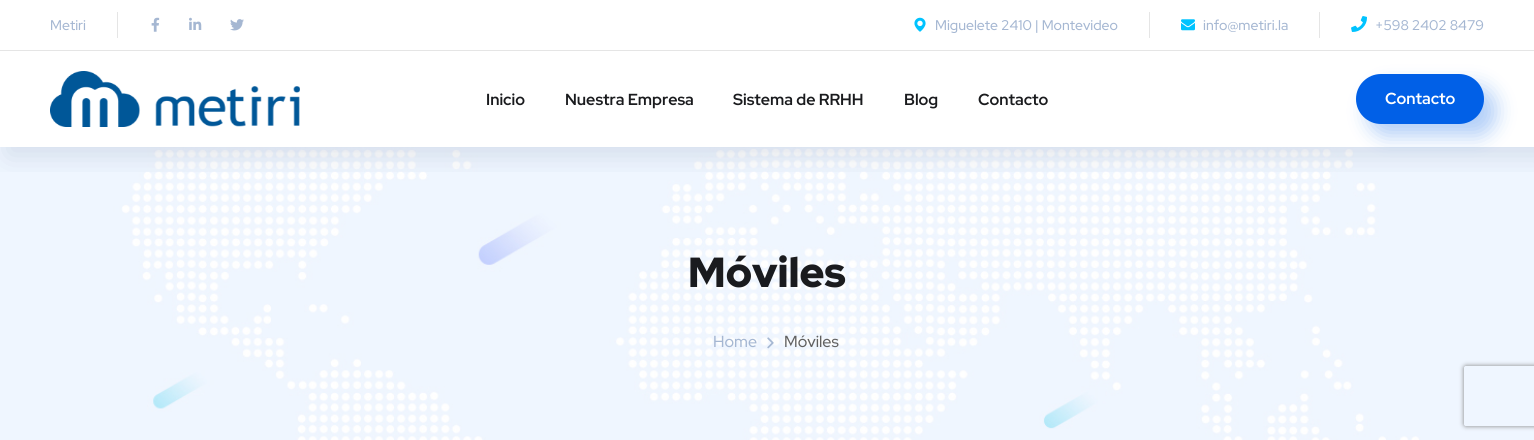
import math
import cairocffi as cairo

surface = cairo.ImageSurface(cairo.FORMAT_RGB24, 1534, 440)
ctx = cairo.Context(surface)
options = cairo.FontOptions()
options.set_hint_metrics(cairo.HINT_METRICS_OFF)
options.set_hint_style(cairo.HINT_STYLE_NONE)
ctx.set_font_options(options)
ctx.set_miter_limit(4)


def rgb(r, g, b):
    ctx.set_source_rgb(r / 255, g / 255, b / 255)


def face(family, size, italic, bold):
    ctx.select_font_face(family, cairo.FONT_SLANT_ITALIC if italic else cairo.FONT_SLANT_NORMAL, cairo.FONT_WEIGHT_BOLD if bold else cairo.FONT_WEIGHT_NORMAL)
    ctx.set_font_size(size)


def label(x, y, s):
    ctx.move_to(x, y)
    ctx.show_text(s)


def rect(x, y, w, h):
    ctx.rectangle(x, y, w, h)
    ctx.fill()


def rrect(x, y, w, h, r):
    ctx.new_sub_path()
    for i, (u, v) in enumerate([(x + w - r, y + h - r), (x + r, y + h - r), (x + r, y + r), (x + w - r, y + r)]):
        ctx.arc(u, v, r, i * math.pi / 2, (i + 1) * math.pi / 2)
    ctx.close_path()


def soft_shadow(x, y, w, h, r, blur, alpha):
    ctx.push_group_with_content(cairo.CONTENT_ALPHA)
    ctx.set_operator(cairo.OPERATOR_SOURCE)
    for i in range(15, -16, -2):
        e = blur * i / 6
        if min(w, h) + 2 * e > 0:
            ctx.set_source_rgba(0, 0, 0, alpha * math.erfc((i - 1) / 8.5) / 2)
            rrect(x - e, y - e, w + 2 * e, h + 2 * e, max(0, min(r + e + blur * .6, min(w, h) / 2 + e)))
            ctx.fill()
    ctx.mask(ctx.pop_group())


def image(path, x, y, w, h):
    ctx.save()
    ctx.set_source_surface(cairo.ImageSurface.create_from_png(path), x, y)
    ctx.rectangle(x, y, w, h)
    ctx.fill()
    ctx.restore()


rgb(255, 255, 255)
ctx.paint()
image('image7.png', 0, 147, 1534, 293)
ctx.save()
ctx.rectangle(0, 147, 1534, 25)
ctx.clip()
rgb(42, 67, 113)
soft_shadow(8, 8, 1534, 147, 0, 15, 0.15)
ctx.restore()
rgb(229, 229, 229)
rect(0, 50, 1534, 1)
rect(117, 12, 1, 26)
face('Red Hat Display Medium', 14, 0, 0)
rgb(165, 183, 210)
label(50, 30, 'Metiri')
image('image0.png', 151, 17, 9, 15)
image('image1.png', 189, 17, 13, 13)
image('image2.png', 230, 19, 14, 12)
rgb(229, 229, 229)
rect(1149, 12, 1, 26)
image('image3.png', 914, 17, 12, 15)
rgb(165, 183, 210)
label(935, 30, 'Miguelete 2410 | Montevideo')
rgb(229, 229, 229)
rect(1319, 12, 1, 26)
image('image4.png', 1181, 19, 14, 12)
rgb(165, 183, 210)
label(1203, 30, 'info@metiri.la')
image('image5.png', 1351, 16, 16, 16)
label(1375, 30, '+598 2402 8479')
image('image6.png', 50, 71, 250, 56)
face('Red Hat Display', 16, 0, 1)
rgb(26, 27, 30)
label(486, 105, 'Inicio')
label(565, 105, 'Nuestra Empresa')
label(733, 105, 'Sistema de RRHH')
label(904, 105, 'Blog')
label(978, 105, 'Contacto')
rgb(1, 96, 231)
soft_shadow(1368, 86, 128, 50, 25, 10, 0.3)
rgb(1, 96, 231)
rrect(1356, 74, 128, 50, 25)
ctx.fill()
rgb(255, 255, 255)
label(1385, 104, 'Contacto')
face('Red Hat Display Black', 42, 0, 0)
rgb(26, 27, 30)
label(688, 287, 'Móviles')
face('Red Hat Display Medium', 16, 0, 0)
rgb(165, 183, 210)
label(713, 347, 'Home')
image('image8.png', 767, 337, 7, 12)
rgb(96, 96, 96)
label(784, 347, 'Móviles')
ctx.save()
ctx.set_fill_rule(cairo.FILL_RULE_EVEN_ODD)
ctx.new_path()
ctx.move_to(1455, 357)
ctx.line_to(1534, 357)
ctx.line_to(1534, 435)
ctx.line_to(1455, 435)
ctx.close_path()
ctx.move_to(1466, 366)
ctx.line_to(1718, 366)
ctx.curve_to(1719, 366, 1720, 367, 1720, 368)
ctx.line_to(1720, 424)
ctx.curve_to(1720, 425, 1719, 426, 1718, 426)
ctx.line_to(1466, 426)
ctx.curve_to(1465, 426, 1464, 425, 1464, 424)
ctx.line_to(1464, 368)
ctx.curve_to(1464, 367, 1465, 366, 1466, 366)
ctx.close_path()
ctx.clip()
rgb(128, 128, 128)
soft_shadow(1464, 366, 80, 60, 2, 2.5, 1)
ctx.restore()
surface.write_to_png('render.png')
